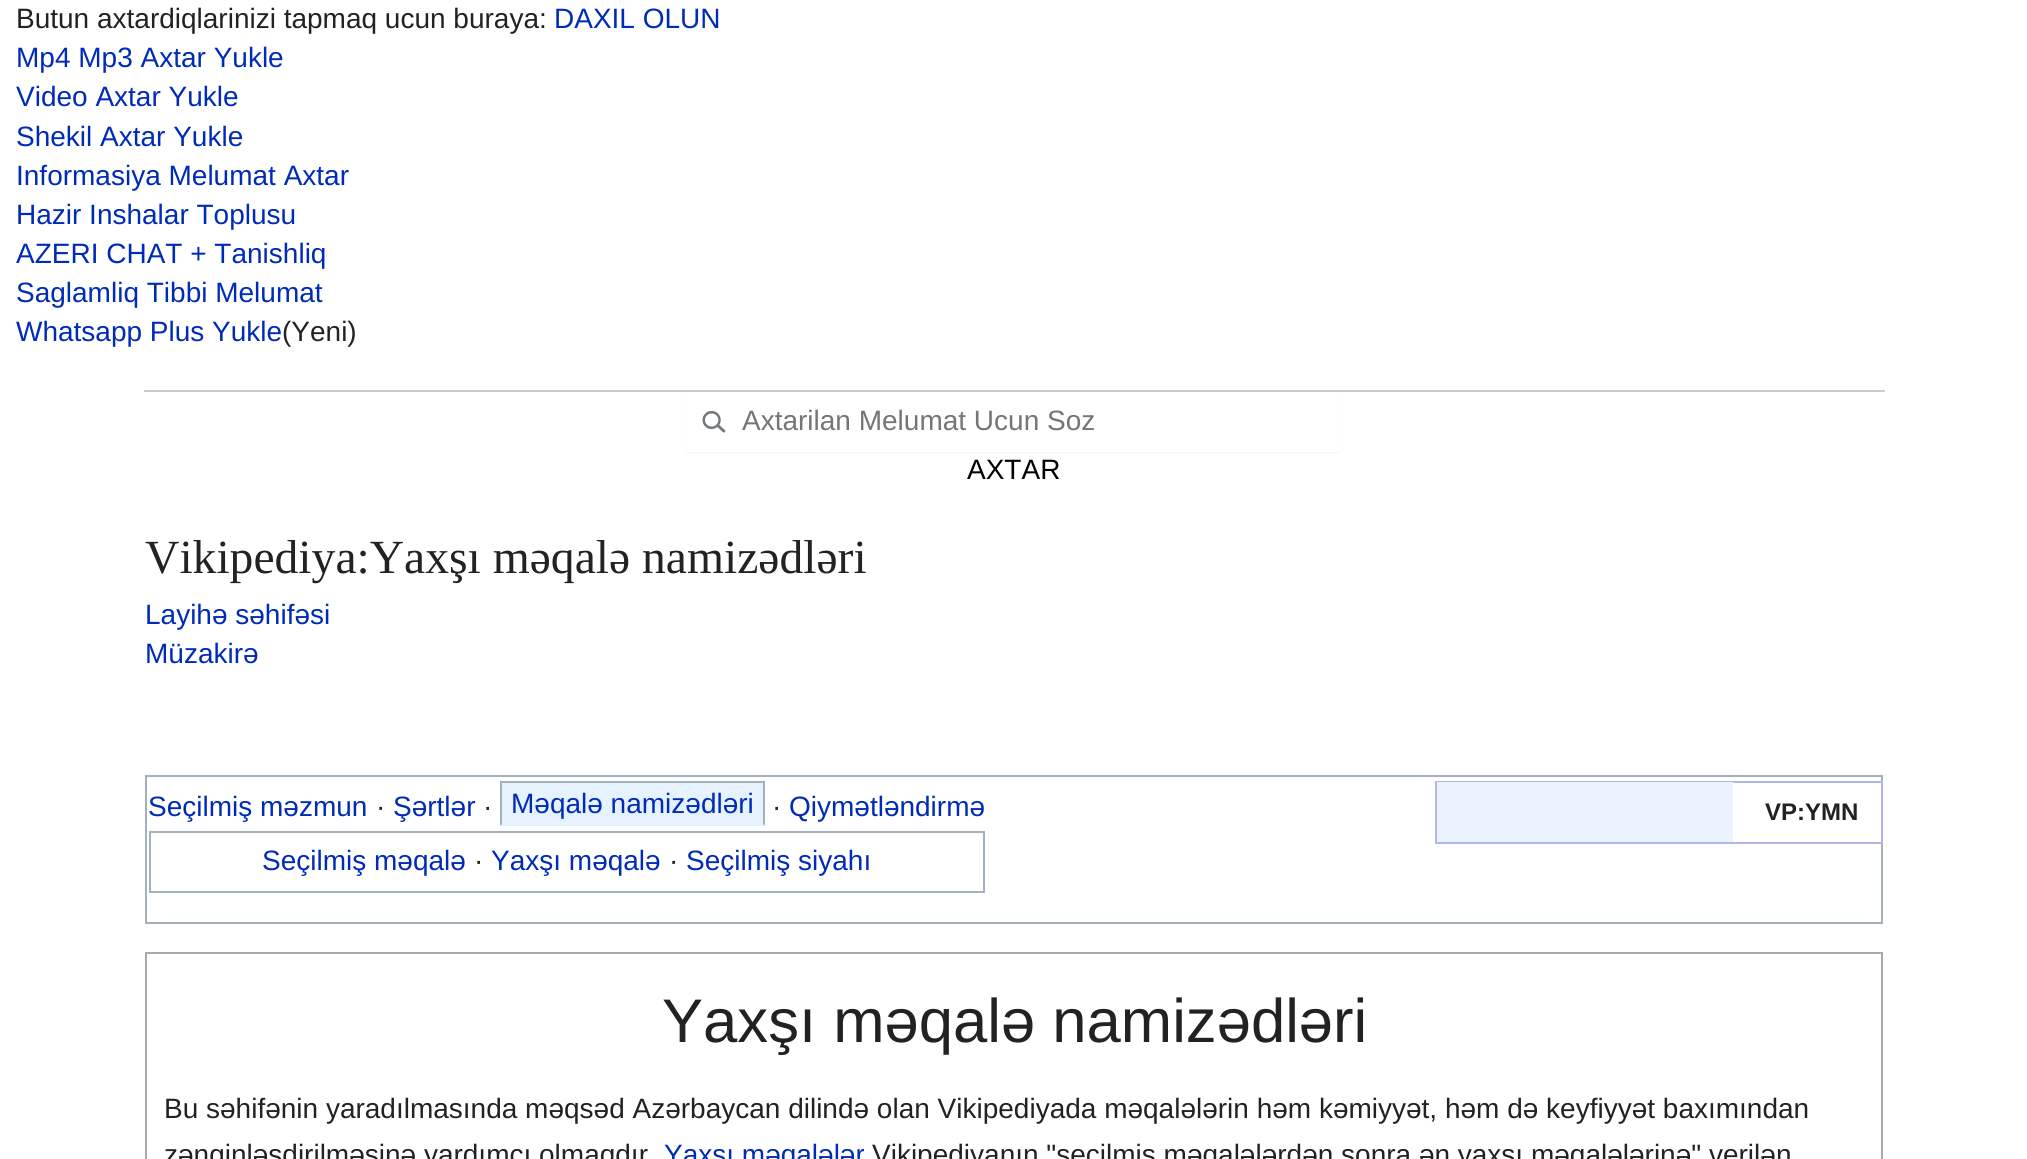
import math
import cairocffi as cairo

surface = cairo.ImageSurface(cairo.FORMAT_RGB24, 2027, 1159)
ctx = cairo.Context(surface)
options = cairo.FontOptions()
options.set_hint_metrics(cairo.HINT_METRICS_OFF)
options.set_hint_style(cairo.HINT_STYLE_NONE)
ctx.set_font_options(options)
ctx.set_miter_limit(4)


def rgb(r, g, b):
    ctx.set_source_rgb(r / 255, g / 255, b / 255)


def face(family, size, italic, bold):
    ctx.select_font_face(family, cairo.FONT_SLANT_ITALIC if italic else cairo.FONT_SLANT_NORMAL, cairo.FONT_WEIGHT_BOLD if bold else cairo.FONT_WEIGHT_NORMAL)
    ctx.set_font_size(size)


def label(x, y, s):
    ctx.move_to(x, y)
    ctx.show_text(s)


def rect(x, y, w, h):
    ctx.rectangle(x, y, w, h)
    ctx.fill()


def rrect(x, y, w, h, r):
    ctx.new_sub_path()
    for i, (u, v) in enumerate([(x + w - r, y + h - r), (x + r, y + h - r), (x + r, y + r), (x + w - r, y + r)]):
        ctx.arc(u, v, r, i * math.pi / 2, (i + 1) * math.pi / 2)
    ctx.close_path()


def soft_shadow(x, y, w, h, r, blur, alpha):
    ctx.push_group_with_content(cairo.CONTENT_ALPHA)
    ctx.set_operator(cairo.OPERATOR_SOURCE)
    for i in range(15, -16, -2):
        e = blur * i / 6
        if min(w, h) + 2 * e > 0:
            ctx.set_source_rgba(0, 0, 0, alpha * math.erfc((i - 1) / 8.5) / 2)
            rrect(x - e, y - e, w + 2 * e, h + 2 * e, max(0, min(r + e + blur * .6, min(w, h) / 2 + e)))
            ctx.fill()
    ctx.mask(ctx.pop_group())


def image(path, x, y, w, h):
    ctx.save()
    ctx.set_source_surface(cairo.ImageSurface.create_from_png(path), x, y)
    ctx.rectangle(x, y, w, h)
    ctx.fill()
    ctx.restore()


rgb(255, 255, 255)
ctx.paint()
face('Liberation Sans', 28, 0, 0)
rgb(34, 34, 34)
label(16, 28, 'Butun axtardiqlarinizi tapmaq ucun buraya:')
rgb(0, 43, 184)
label(554, 28, 'DAXIL OLUN')
label(16, 67, 'Mp4 Mp3 Axtar Yukle')
label(16, 106, 'Video Axtar Yukle')
label(16, 146, 'Shekil Axtar Yukle')
label(16, 185, 'Informasiya Melumat Axtar')
label(16, 224, 'Hazir Inshalar Toplusu')
label(16, 263, 'AZERI CHAT + Tanishliq')
label(16, 302, 'Saglamliq Tibbi Melumat')
label(16, 341, 'Whatsapp Plus Yukle')
rgb(34, 34, 34)
label(282, 341, '(Yeni)')
rgb(200, 204, 209)
rect(144, 390, 1741, 2)
rgb(0, 0, 0)
soft_shadow(686, 394, 656, 59, 4, 1, 0.05)
rgb(255, 255, 255)
rrect(686, 392, 656, 60, 4)
ctx.fill()
image('image0.png', 702, 411, 24, 22)
rgb(117, 117, 117)
label(742, 430, 'Axtarilan Melumat Ucun Soz')
rgb(0, 0, 0)
label(967, 479, 'AXTAR')
face('Liberation Serif', 47.6, 0, 0)
rgb(34, 34, 34)
label(145, 573, 'Vikipediya:Yaxşı məqalə namizədləri')
face('Liberation Sans', 28, 0, 0)
rgb(0, 43, 184)
label(145, 624, 'Layihə səhifəsi')
label(145, 663, 'Müzakirə')
ctx.rectangle(146, 776, 1736, 147)
rgb(163, 177, 191)
ctx.stroke()
rgb(0, 43, 184)
label(148, 816, 'Seçilmiş məzmun')
rgb(34, 34, 34)
label(376, 816, '·')
rgb(0, 43, 184)
label(393, 816, 'Şərtlər')
rgb(34, 34, 34)
label(483, 816, '·')
rgb(230, 242, 255)
rect(501, 783, 264, 43)
rgb(0, 43, 184)
label(511, 813, 'Məqalə namizədləri')
rgb(163, 177, 191)
rect(501, 781, 264, 2)
ctx.new_path()
ctx.move_to(765, 780)
ctx.line_to(765, 826)
ctx.line_to(763, 824)
ctx.line_to(763, 782)
ctx.close_path()
ctx.fill()
ctx.new_path()
ctx.move_to(500, 826)
ctx.line_to(500, 780)
ctx.line_to(502, 782)
ctx.line_to(502, 824)
ctx.close_path()
ctx.fill()
rgb(34, 34, 34)
label(772, 816, '·')
rgb(0, 43, 184)
label(789, 816, 'Qiymətləndirmə')
ctx.rectangle(150, 832, 834, 60)
rgb(163, 177, 191)
ctx.stroke()
rgb(0, 43, 184)
label(262, 870, 'Seçilmiş məqalə')
rgb(34, 34, 34)
label(474, 870, '·')
rgb(0, 43, 184)
label(491, 870, 'Yaxşı məqalə')
rgb(34, 34, 34)
label(669, 870, '·')
rgb(0, 43, 184)
label(686, 870, 'Seçilmiş siyahı')
ctx.rectangle(1436, 782, 446, 61)
rgb(175, 182, 233)
ctx.stroke()
rgb(234, 243, 255)
rect(1437, 782, 296, 60)
face('Liberation Sans', 24, 0, 1)
rgb(34, 34, 34)
label(1765, 820, 'VP:YMN')
ctx.rectangle(146, 953, 1736, 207)
rgb(170, 170, 170)
ctx.stroke()
face('Liberation Sans', 61.6, 0, 0)
rgb(34, 34, 34)
label(662, 1042, 'Yaxşı məqalə namizədləri')
face('Liberation Sans', 28, 0, 0)
label(164, 1118, 'Bu səhifənin yaradılmasında məqsəd Azərbaycan dilində olan Vikipediyada məqalələrin həm kəmiyyət, həm də keyfiyyət baxımından')
label(164, 1164, 'zənginləşdirilməsinə yardımçı olmaqdır')
rgb(0, 43, 184)
label(664, 1164, 'Yaxşı məqalələr')
rgb(34, 34, 34)
label(872, 1164, 'Vikipediyanın "seçilmiş məqalələrdən sonra ən yaxşı məqalələrinə" verilən')
surface.write_to_png('render.png')
